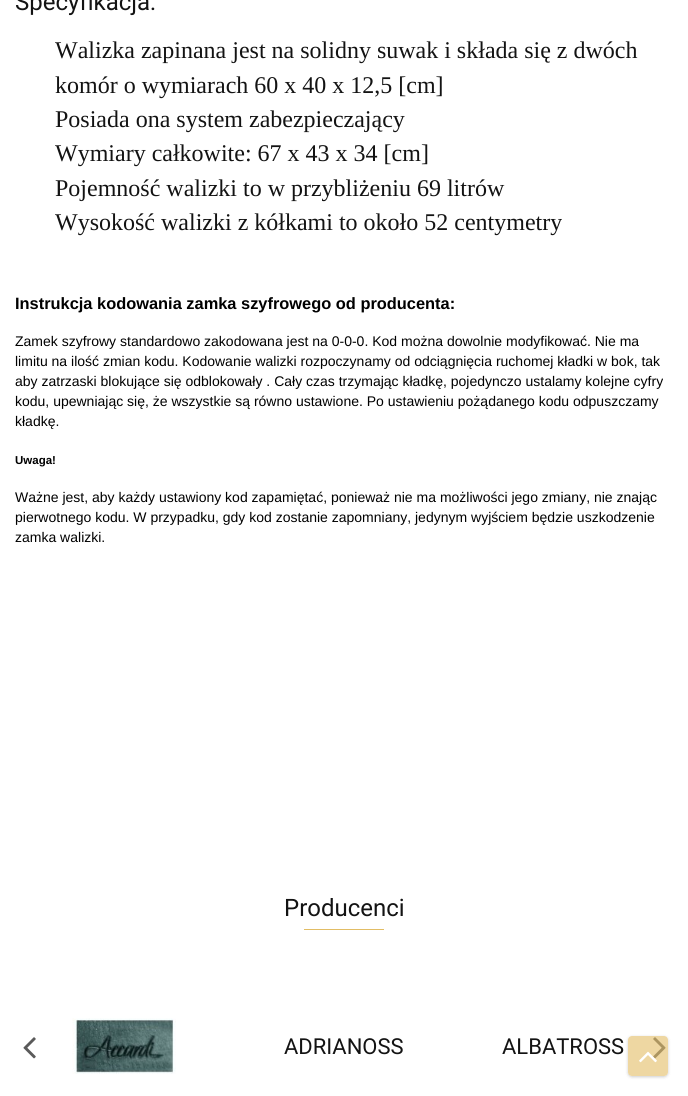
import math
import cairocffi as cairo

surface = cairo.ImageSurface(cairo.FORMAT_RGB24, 688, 1096)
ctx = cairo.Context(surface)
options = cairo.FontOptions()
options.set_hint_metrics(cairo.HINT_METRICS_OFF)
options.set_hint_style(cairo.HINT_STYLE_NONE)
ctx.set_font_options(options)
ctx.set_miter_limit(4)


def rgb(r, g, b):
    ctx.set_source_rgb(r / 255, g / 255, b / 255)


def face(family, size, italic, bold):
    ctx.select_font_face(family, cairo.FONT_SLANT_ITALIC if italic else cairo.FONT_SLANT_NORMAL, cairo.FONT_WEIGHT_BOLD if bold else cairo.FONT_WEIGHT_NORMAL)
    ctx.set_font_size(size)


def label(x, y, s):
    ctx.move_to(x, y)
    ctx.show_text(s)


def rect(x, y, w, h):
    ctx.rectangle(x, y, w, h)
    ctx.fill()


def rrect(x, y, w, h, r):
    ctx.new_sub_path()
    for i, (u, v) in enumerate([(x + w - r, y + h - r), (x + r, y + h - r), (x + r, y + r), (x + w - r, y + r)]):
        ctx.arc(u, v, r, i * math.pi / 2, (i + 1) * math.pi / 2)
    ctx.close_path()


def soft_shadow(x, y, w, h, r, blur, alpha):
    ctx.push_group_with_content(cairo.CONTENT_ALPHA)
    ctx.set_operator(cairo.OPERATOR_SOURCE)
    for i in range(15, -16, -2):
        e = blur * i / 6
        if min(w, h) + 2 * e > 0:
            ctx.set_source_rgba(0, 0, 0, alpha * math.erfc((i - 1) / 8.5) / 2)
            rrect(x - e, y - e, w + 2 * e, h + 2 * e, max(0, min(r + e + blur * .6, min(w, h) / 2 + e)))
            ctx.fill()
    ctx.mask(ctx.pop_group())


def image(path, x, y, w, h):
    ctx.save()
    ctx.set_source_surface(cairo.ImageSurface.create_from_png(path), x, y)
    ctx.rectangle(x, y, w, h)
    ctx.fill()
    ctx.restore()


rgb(255, 255, 255)
ctx.paint()
face('Roboto', 24, 0, 0)
rgb(19, 19, 19)
label(15, 10, 'Specyfikacja:')
face('Liberation Serif', 24, 0, 0)
label(55, 58, 'Walizka zapinana jest na solidny suwak i składa się z dwóch')
label(55, 93, 'komór o wymiarach 60 x 40 x 12,5 [cm]')
label(55, 127, 'Posiada ona system zabezpieczający')
label(55, 161, 'Wymiary całkowite: 67 x 43 x 34 [cm]')
label(55, 196, 'Pojemność walizki to w przybliżeniu 69 litrów')
label(55, 230, 'Wysokość walizki z kółkami to około 52 centymetry')
face('Liberation Sans', 16.4, 0, 1)
rgb(0, 0, 0)
label(15, 309, 'Instrukcja kodowania zamka szyfrowego od producenta:')
face('Liberation Sans', 14, 0, 0)
label(15, 346, 'Zamek szyfrowy standardowo zakodowana jest na 0-0-0. Kod można dowolnie modyfikować. Nie ma')
label(15, 366, 'limitu na ilość zmian kodu. Kodowanie walizki rozpoczynamy od odciągnięcia ruchomej kładki w bok, tak')
label(15, 386, 'aby zatrzaski blokujące się odblokowały . Cały czas trzymając kładkę, pojedynczo ustalamy kolejne cyfry')
label(15, 406, 'kodu, upewniając się, że wszystkie są równo ustawione. Po ustawieniu pożądanego kodu odpuszczamy')
label(15, 426, 'kładkę.')
face('Liberation Sans', 11.5, 0, 1)
label(15, 464, 'Uwaga!')
face('Liberation Sans', 14, 0, 0)
label(15, 502, 'Ważne jest, aby każdy ustawiony kod zapamiętać, ponieważ nie ma możliwości jego zmiany, nie znając')
label(15, 522, 'pierwotnego kodu. W przypadku, gdy kod zostanie zapomniany, jedynym wyjściem będzie uszkodzenie')
label(15, 542, 'zamka walizki.')
face('Roboto', 24, 0, 0)
rgb(19, 19, 19)
label(284, 916, 'Producenci')
rgb(226, 189, 101)
rect(304, 929, 80, 1)
image('image0.png', 23, 1037, 13, 22)
image('image1.png', 653, 1037, 13, 22)
image('image2.png', 72, 1018, 104, 56)
face('Roboto', 22, 0, 0)
rgb(19, 19, 19)
label(284, 1054, 'ADRIANOSS')
label(502, 1054, 'ALBATROSS')
ctx.save()
ctx.set_fill_rule(cairo.FILL_RULE_EVEN_ODD)
ctx.new_path()
ctx.move_to(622, 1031)
ctx.line_to(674, 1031)
ctx.line_to(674, 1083)
ctx.line_to(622, 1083)
ctx.close_path()
ctx.move_to(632, 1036)
ctx.line_to(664, 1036)
ctx.curve_to(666, 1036, 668, 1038, 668, 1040)
ctx.line_to(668, 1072)
ctx.curve_to(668, 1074, 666, 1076, 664, 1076)
ctx.line_to(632, 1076)
ctx.curve_to(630, 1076, 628, 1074, 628, 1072)
ctx.line_to(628, 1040)
ctx.curve_to(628, 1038, 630, 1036, 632, 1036)
ctx.close_path()
ctx.clip()
rgb(0, 0, 0)
soft_shadow(628, 1037, 40, 40, 4, 1.5, 0.2)
ctx.restore()
ctx.set_source_rgba(0.886, 0.741, 0.396, 0.6)
rrect(628, 1036, 40, 40, 4)
ctx.fill()
image('image3.png', 639, 1051, 18, 12)
surface.write_to_png('render.png')
